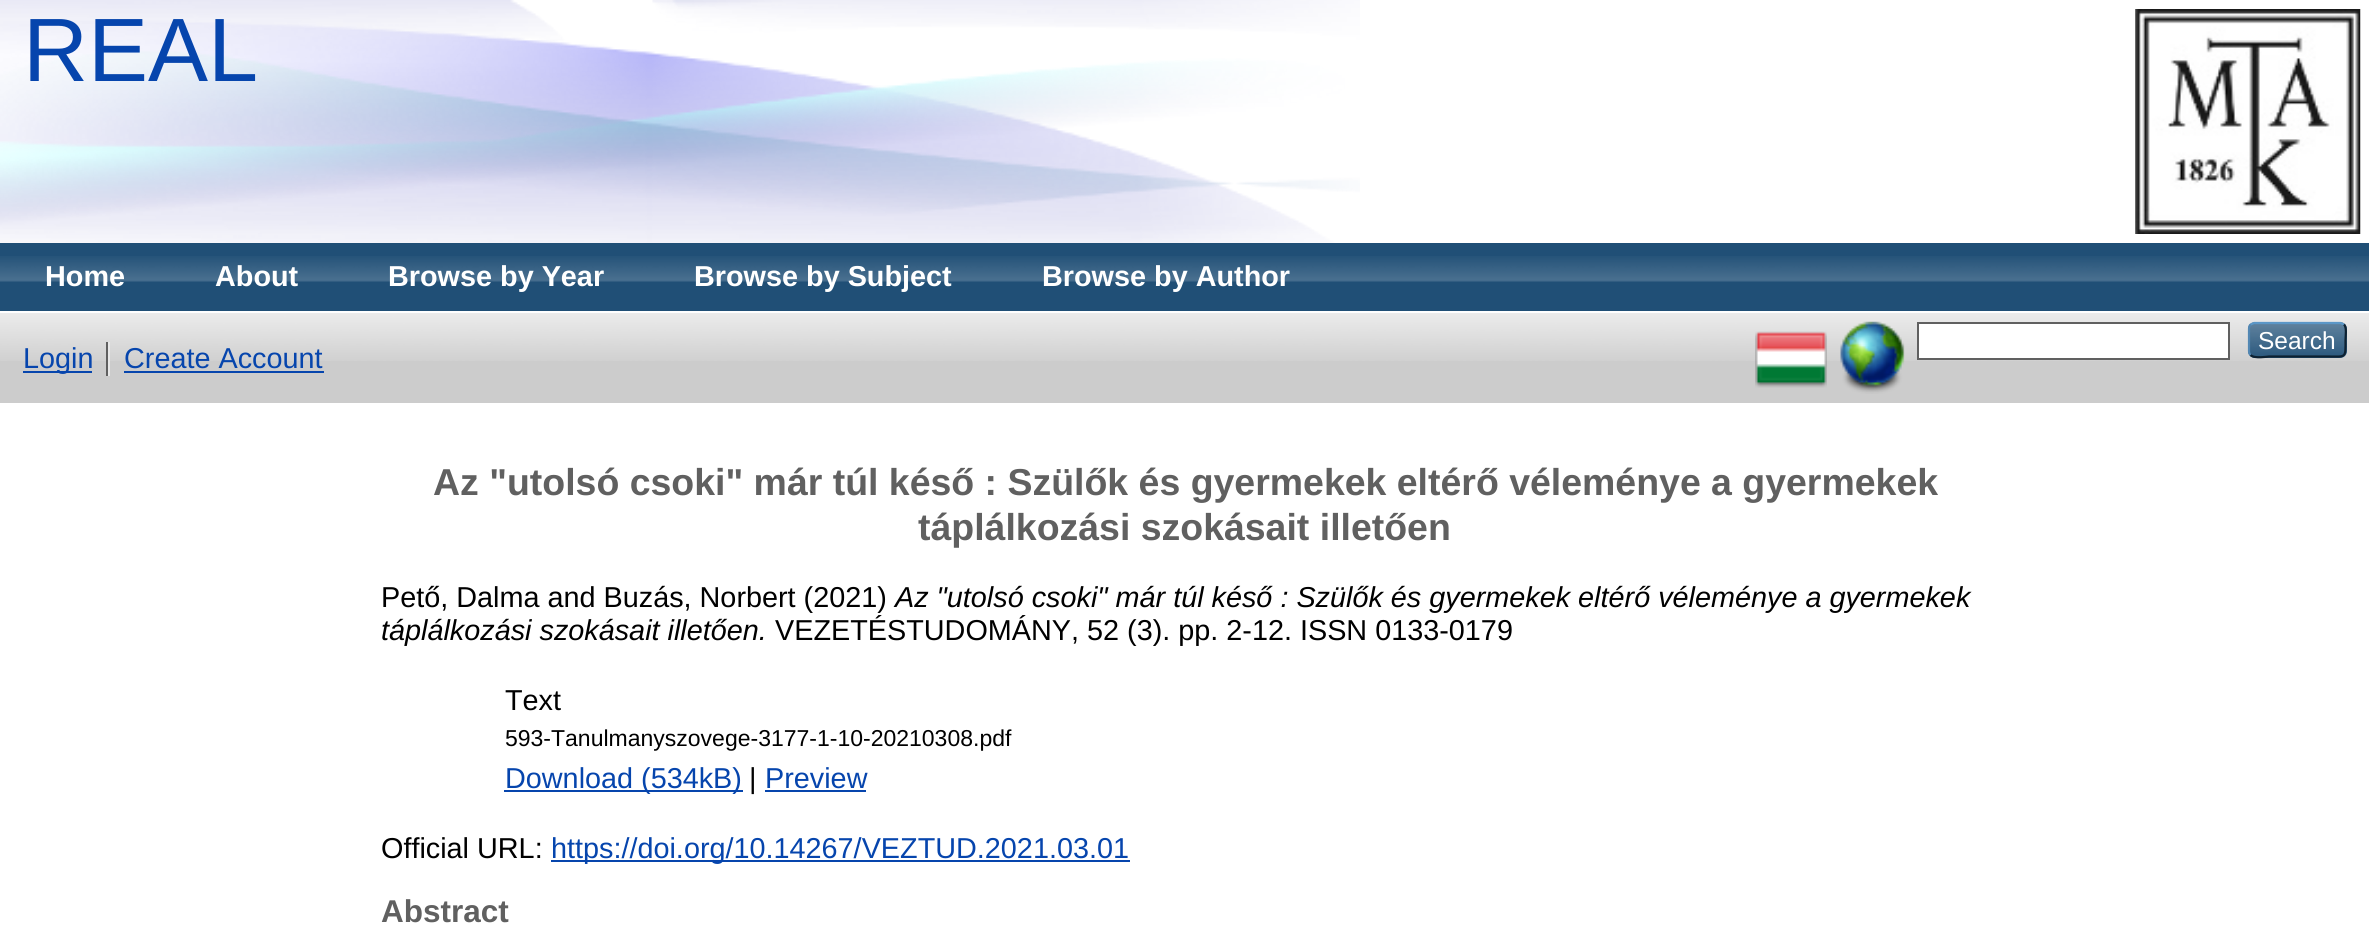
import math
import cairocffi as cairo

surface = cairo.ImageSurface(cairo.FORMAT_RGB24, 2369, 938)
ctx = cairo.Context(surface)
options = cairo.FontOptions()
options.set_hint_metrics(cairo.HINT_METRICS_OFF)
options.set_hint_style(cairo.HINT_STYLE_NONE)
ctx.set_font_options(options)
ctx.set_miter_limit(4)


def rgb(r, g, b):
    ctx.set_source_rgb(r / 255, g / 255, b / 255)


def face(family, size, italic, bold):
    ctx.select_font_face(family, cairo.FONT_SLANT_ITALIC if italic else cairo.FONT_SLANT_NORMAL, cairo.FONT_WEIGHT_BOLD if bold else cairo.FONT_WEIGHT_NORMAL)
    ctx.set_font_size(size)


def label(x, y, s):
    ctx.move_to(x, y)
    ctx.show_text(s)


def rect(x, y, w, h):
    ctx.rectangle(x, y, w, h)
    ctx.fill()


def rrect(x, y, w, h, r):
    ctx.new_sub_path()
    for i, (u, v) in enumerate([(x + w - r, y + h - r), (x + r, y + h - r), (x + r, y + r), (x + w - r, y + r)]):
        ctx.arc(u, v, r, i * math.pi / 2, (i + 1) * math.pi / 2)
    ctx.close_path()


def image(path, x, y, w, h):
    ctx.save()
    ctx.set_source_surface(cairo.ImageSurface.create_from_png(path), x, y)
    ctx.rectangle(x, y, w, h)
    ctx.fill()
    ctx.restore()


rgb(255, 255, 255)
ctx.paint()
image('image0.png', 0, 0, 1360, 243)
face('Liberation Sans', 90, 0, 0)
rgb(6, 69, 173)
label(23, 81, 'REAL')
image('image1.png', 2135, 9, 226, 225)
rgb(32, 79, 118)
rect(0, 243, 2369, 68)
image('image2.png', 0, 256, 2369, 26)
face('Liberation Sans', 28.8, 0, 1)
rgb(255, 255, 255)
label(45, 286, 'Home')
label(215, 286, 'About')
label(388, 286, 'Browse by Year')
label(694, 286, 'Browse by Subject')
label(1042, 286, 'Browse by Author')
rgb(204, 204, 204)
rect(0, 313, 2369, 90)
image('image3.png', 0, 313, 2369, 48)
image('image4.png', 1755, 331, 72, 57)
image('image5.png', 1840, 321, 65, 73)
rgb(255, 255, 255)
ctx.rectangle(1918, 323, 311, 36)
ctx.fill_preserve()
rgb(96, 96, 96)
ctx.stroke()
rgb(31, 79, 118)
rrect(2248, 322, 99, 36, 7)
ctx.fill()
image('image6.png', 2248, 322, 99, 36)
ctx.new_path()
ctx.move_to(2250.5, 324.5)
ctx.line_to(2254, 323)
ctx.line_to(2340.5, 323)
ctx.line_to(2344, 324.5)
rgb(91, 151, 199)
ctx.set_line_width(2.2)
ctx.stroke()
ctx.new_path()
ctx.move_to(2344, 324.5)
ctx.curve_to(2347, 327.5, 2345.5, 336, 2345.5, 340)
ctx.curve_to(2345.5, 359, 2346.5, 356.5, 2326, 356.5)
ctx.line_to(2269, 356.5)
ctx.curve_to(2267.5, 356.5, 2254.5, 359, 2250.5, 355)
rgb(13, 33, 49)
ctx.stroke()
ctx.new_path()
ctx.move_to(2250.5, 355)
ctx.curve_to(2249.5, 354, 2249, 352.5, 2249, 351)
ctx.line_to(2249, 328.5)
ctx.curve_to(2249, 327, 2249.5, 325.5, 2250.5, 324.5)
rgb(82, 135, 179)
ctx.stroke()
face('Liberation Sans', 24.5, 0, 0)
rgb(255, 255, 255)
label(2258, 349, 'Search')
rgb(6, 69, 173)
rect(23, 371, 69, 2)
face('Liberation Sans', 28.8, 0, 0)
label(23, 368, 'Login')
rgb(96, 96, 96)
rect(106, 342, 2, 34)
rgb(6, 69, 173)
label(124, 368, 'Create Account')
rgb(232, 232, 232)
rect(108, 342, 2, 34)
rgb(6, 69, 173)
rect(124, 371, 200, 2)
face('Liberation Sans', 37.45, 0, 1)
rgb(96, 96, 96)
label(433, 495, 'Az "utolsó csoki" már túl késő : Szülők és gyermekek eltérő véleménye a gyermekek')
label(918, 540, 'táplálkozási szokásait illetően')
face('Liberation Sans', 28.8, 0, 0)
rgb(0, 0, 0)
label(381, 607, 'Pető, Dalma and Buzás, Norbert (2021)')
face('Liberation Sans', 28.8, 1, 0)
label(895, 607, 'Az "utolsó csoki" már túl késő : Szülők és gyermekek eltérő véleménye a gyermekek')
label(381, 640, 'táplálkozási szokásait illetően.')
face('Liberation Sans', 28.8, 0, 0)
label(775, 640, 'VEZETÉSTUDOMÁNY, 52 (3). pp. 2-12. ISSN 0133-0179')
label(505, 710, 'Text')
face('Liberation Sans', 23, 0, 0)
label(505, 746, '593-Tanulmanyszovege-3177-1-10-20210308.pdf')
rgb(6, 69, 173)
rect(504, 790, 239, 2)
face('Liberation Sans', 28.8, 0, 0)
label(505, 788, 'Download (534kB)')
rgb(0, 0, 0)
label(749, 788, '|')
rgb(6, 69, 173)
label(765, 788, 'Preview')
rect(765, 790, 101, 2)
rgb(0, 0, 0)
label(381, 858, 'Official URL:')
rgb(6, 69, 173)
rect(551, 860, 579, 2)
label(551, 858, 'https://doi.org/10.14267/VEZTUD.2021.03.01')
face('Liberation Sans', 31.5, 0, 1)
rgb(96, 96, 96)
label(381, 922, 'Abstract')
surface.write_to_png('render.png')
